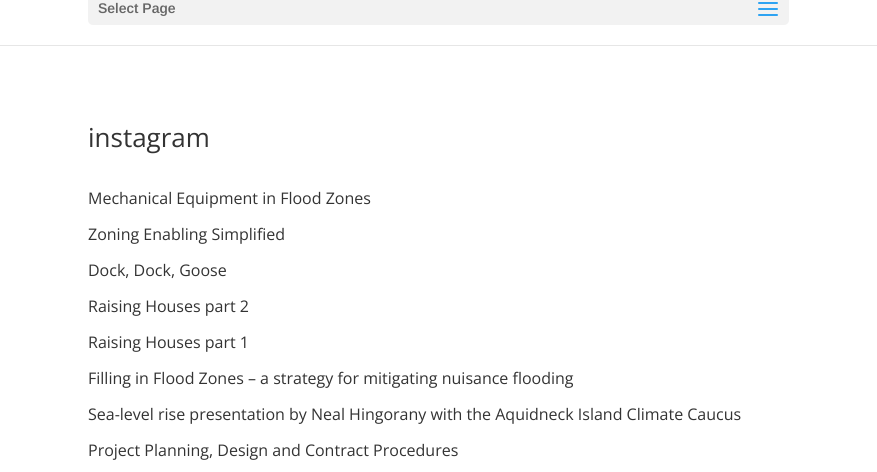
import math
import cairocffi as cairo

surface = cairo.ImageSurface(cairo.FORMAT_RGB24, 877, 472)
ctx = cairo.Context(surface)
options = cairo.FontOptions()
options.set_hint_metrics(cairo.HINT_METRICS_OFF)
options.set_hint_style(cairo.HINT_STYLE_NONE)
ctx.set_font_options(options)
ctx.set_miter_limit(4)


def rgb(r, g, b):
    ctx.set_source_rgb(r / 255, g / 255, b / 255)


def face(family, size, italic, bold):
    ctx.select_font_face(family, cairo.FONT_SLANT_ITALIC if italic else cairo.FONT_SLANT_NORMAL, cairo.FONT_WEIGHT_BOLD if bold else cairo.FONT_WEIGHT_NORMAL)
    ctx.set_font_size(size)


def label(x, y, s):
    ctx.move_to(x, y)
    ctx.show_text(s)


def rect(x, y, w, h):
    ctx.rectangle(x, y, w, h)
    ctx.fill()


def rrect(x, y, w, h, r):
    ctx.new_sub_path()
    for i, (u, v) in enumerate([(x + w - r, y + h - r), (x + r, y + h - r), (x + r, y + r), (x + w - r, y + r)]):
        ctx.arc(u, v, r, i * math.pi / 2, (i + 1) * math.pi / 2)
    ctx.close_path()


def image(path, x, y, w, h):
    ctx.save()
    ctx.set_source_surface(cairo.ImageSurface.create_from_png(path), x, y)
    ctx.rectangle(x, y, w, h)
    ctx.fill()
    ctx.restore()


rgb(255, 255, 255)
ctx.paint()
rgb(230, 230, 230)
rect(0, 45, 877, 1)
rgb(242, 242, 242)
rrect(88, -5, 701, 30, 5)
ctx.fill()
face('Arimo SemiBold', 14, 0, 0)
rgb(102, 102, 102)
label(98, 13, 'Select Page')
image('image0.png', 758, 2, 20, 14)
face('Open Sans', 26, 0, 0)
rgb(51, 51, 51)
label(88, 147, 'instagram')
face('Open Sans', 16, 0, 0)
label(88, 204, 'Mechanical Equipment in Flood Zones')
label(88, 240, 'Zoning Enabling Simplified')
label(88, 276, 'Dock, Dock, Goose')
label(88, 312, 'Raising Houses part 2')
label(88, 348, 'Raising Houses part 1')
label(88, 384, 'Filling in Flood Zones – a strategy for mitigating nuisance flooding')
label(88, 420, 'Sea-level rise presentation by Neal Hingorany with the Aquidneck Island Climate Caucus')
label(88, 456, 'Project Planning, Design and Contract Procedures')
surface.write_to_png('render.png')
